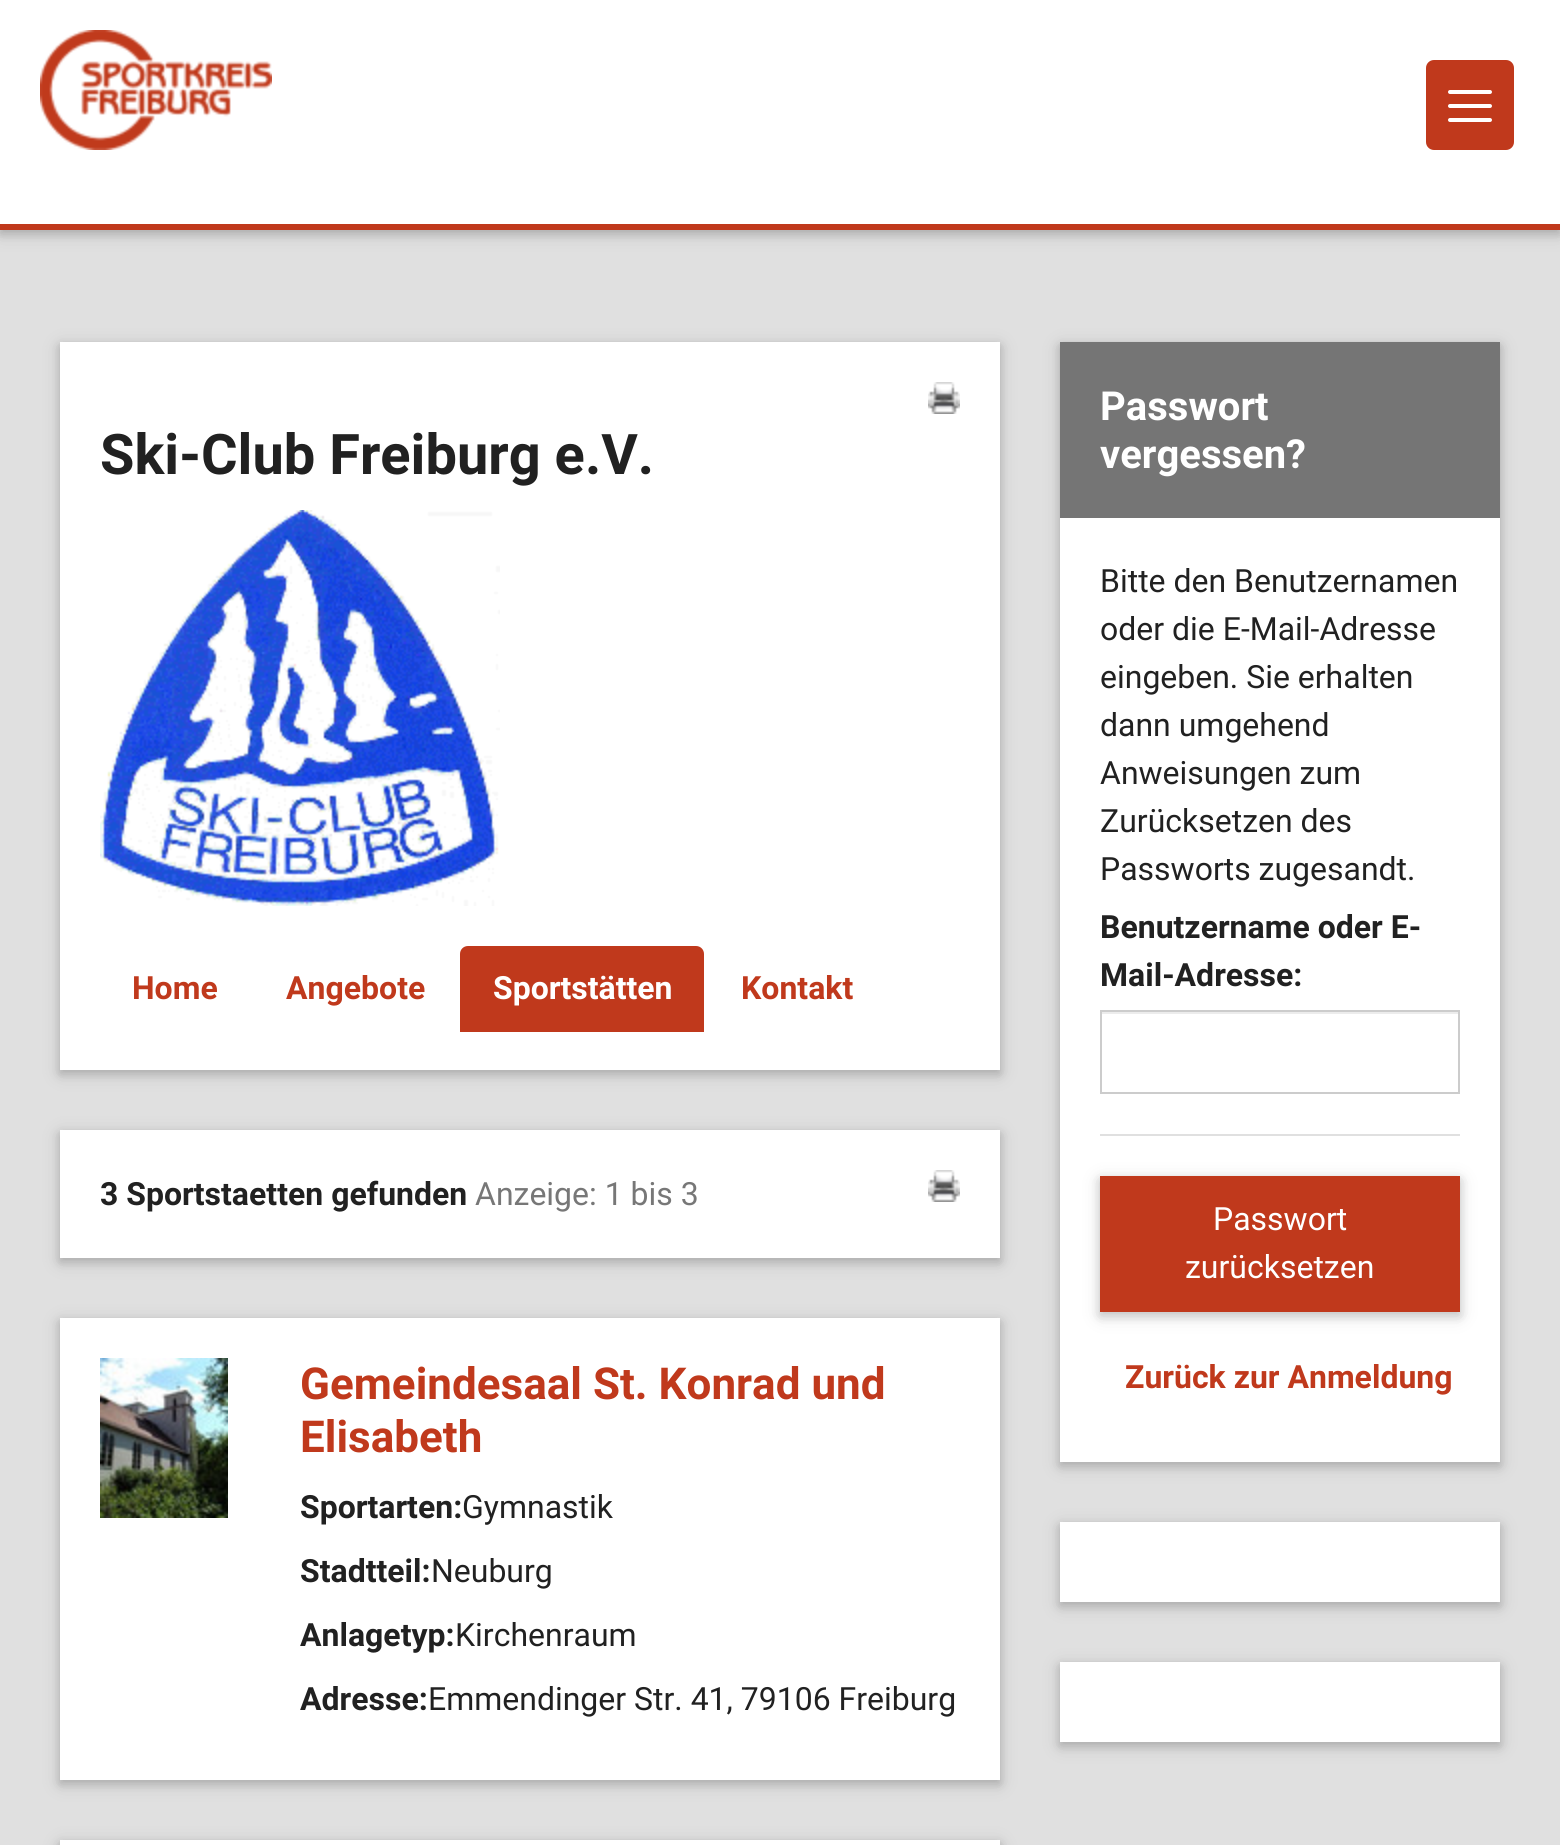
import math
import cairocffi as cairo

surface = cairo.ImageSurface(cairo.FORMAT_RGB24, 1560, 1845)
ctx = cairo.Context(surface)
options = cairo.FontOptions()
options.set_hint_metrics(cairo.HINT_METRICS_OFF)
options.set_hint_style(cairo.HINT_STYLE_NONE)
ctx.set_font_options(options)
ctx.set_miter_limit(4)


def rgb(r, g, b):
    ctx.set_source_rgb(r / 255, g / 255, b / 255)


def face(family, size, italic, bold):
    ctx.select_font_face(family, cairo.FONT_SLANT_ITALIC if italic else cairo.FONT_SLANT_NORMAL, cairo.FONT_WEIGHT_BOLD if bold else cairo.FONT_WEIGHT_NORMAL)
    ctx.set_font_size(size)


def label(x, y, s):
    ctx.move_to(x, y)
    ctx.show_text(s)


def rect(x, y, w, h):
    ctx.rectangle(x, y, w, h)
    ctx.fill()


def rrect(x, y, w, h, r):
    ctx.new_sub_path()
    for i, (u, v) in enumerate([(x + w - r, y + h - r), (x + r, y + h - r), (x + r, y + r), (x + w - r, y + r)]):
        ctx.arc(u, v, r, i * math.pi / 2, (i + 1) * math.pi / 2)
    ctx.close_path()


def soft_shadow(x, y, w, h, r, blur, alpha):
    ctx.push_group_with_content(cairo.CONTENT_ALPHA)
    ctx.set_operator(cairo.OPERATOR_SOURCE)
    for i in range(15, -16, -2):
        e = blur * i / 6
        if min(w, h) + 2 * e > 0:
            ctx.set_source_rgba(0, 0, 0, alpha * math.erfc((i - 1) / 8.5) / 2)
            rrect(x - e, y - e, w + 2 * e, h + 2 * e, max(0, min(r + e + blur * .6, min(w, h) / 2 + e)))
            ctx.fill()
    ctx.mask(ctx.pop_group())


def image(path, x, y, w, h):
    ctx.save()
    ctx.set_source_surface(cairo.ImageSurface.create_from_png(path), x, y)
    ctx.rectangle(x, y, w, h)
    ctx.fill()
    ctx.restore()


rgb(224, 224, 224)
ctx.paint()
rgb(0, 0, 0)
soft_shadow(0, 4, 1560, 230, 0, 10, 0.12)
soft_shadow(0, 4, 1560, 230, 0, 5, 0.16)
rgb(255, 255, 255)
rect(0, 0, 1560, 224)
rgb(192, 57, 28)
rect(0, 224, 1560, 6)
image('image0.png', 40, 30, 232, 120)
rrect(1426, 60, 88, 90, 8)
ctx.fill()
rgb(255, 255, 255)
rrect(1448, 90, 44, 4, 2)
ctx.fill()
rrect(1448, 104, 44, 4, 2)
ctx.fill()
rrect(1448, 118, 44, 4, 2)
ctx.fill()
rgb(0, 0, 0)
soft_shadow(60, 346, 940, 728, 0, 10, 0.12)
soft_shadow(60, 346, 940, 728, 0, 5, 0.16)
rgb(255, 255, 255)
rect(60, 342, 940, 728)
image('image1.png', 928, 382, 32, 32)
face('Roboto', 56, 0, 1)
rgb(33, 33, 33)
label(100, 474, 'Ski-Club Freiburg e.V.')
image('image2.png', 100, 510, 400, 396)
face('Roboto', 32, 0, 1)
rgb(192, 57, 28)
label(132, 999, 'Home')
label(286, 999, 'Angebote')
ctx.new_path()
ctx.move_to(468, 946)
ctx.line_to(696, 946)
ctx.curve_to(700.5, 946, 704, 949.5, 704, 954)
ctx.line_to(704, 1032)
ctx.line_to(460, 1032)
ctx.line_to(460, 954)
ctx.curve_to(460, 949.5, 463.5, 946, 468, 946)
ctx.close_path()
ctx.fill()
rgb(255, 255, 255)
label(493, 999, 'Sportstätten')
rgb(192, 57, 28)
label(741, 999, 'Kontakt')
rgb(0, 0, 0)
soft_shadow(60, 1134, 940, 128, 0, 10, 0.12)
soft_shadow(60, 1134, 940, 128, 0, 5, 0.16)
rgb(255, 255, 255)
rect(60, 1130, 940, 128)
rgb(33, 33, 33)
label(100, 1205, '3 Sportstaetten gefunden')
face('Roboto', 32, 0, 0)
rgb(119, 119, 119)
label(475, 1205, 'Anzeige: 1 bis 3')
image('image1.png', 928, 1170, 32, 32)
rgb(0, 0, 0)
soft_shadow(60, 1322, 940, 462, 0, 10, 0.12)
soft_shadow(60, 1322, 940, 462, 0, 5, 0.16)
rgb(255, 255, 255)
rect(60, 1318, 940, 462)
image('image3.png', 100, 1358, 128, 160)
face('Roboto', 44, 0, 1)
rgb(192, 57, 28)
label(300, 1399, 'Gemeindesaal St. Konrad und')
label(300, 1452, 'Elisabeth')
face('Roboto', 32, 0, 1)
rgb(33, 33, 33)
label(300, 1518, 'Sportarten:')
face('Roboto', 32, 0, 0)
label(462, 1518, 'Gymnastik')
face('Roboto', 32, 0, 1)
label(300, 1582, 'Stadtteil:')
face('Roboto', 32, 0, 0)
label(431, 1582, 'Neuburg')
face('Roboto', 32, 0, 1)
label(300, 1646, 'Anlagetyp:')
face('Roboto', 32, 0, 0)
label(455, 1646, 'Kirchenraum')
face('Roboto', 32, 0, 1)
label(300, 1710, 'Adresse:')
face('Roboto', 32, 0, 0)
label(428, 1710, 'Emmendinger Str. 41, 79106 Freiburg')
rgb(0, 0, 0)
soft_shadow(60, 1844, 940, 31, 0, 10, 0.12)
soft_shadow(60, 1844, 940, 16, 0, 5, 0.16)
rgb(255, 255, 255)
rect(60, 1840, 940, 5)
rgb(0, 0, 0)
soft_shadow(1060, 346, 440, 1120, 0, 10, 0.12)
soft_shadow(1060, 346, 440, 1120, 0, 5, 0.16)
rgb(255, 255, 255)
rect(1060, 518, 440, 944)
rgb(117, 117, 117)
rect(1060, 342, 440, 176)
face('Roboto', 40, 0, 1)
rgb(255, 255, 255)
label(1100, 420, 'Passwort')
label(1100, 468, 'vergessen?')
face('Roboto', 32, 0, 0)
rgb(33, 33, 33)
label(1100, 592, 'Bitte den Benutzernamen')
label(1100, 640, 'oder die E-Mail-Adresse')
label(1100, 688, 'eingeben. Sie erhalten')
label(1100, 736, 'dann umgehend')
label(1100, 784, 'Anweisungen zum')
label(1100, 832, 'Zurücksetzen des')
label(1100, 880, 'Passworts zugesandt.')
face('Roboto', 32, 0, 1)
label(1100, 938, 'Benutzername oder E-')
label(1100, 986, 'Mail-Adresse:')
rgb(236, 236, 236)
rect(1102, 1012, 356, 2)
ctx.rectangle(1101, 1011, 358, 82)
rgb(204, 204, 204)
ctx.stroke()
rgb(224, 224, 224)
rect(1100, 1134, 360, 2)
rgb(0, 0, 0)
soft_shadow(1100, 1180, 360, 136, 0, 10, 0.12)
soft_shadow(1100, 1180, 360, 136, 0, 5, 0.16)
rgb(192, 57, 28)
rect(1100, 1176, 360, 136)
face('Roboto', 32, 0, 0)
rgb(255, 255, 255)
label(1213, 1230, 'Passwort')
label(1185, 1278, 'zurücksetzen')
face('Roboto', 32, 0, 1)
rgb(192, 57, 28)
label(1125, 1388, 'Zurück zur Anmeldung')
rgb(0, 0, 0)
soft_shadow(1060, 1526, 440, 80, 0, 10, 0.12)
soft_shadow(1060, 1526, 440, 80, 0, 5, 0.16)
rgb(255, 255, 255)
rect(1060, 1522, 440, 80)
rgb(0, 0, 0)
soft_shadow(1060, 1666, 440, 80, 0, 10, 0.12)
soft_shadow(1060, 1666, 440, 80, 0, 5, 0.16)
rgb(255, 255, 255)
rect(1060, 1662, 440, 80)
surface.write_to_png('render.png')
